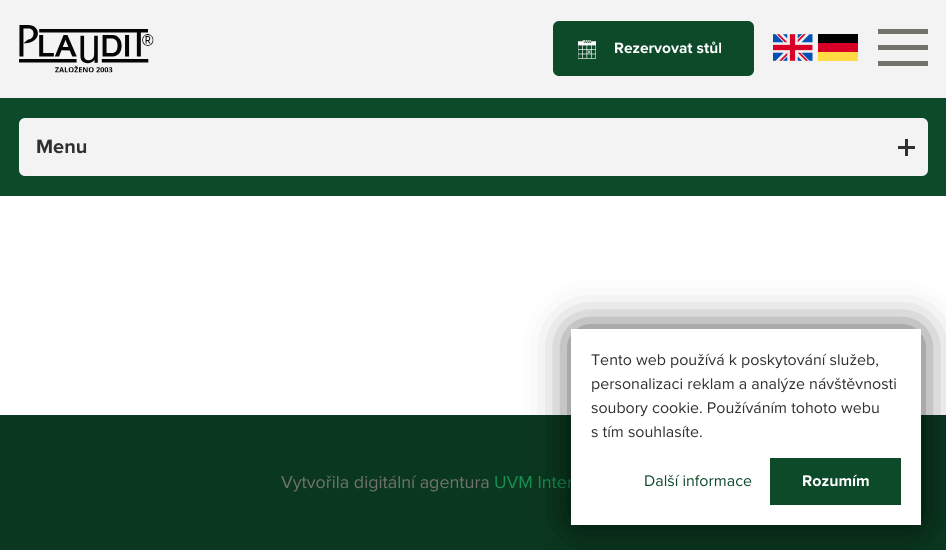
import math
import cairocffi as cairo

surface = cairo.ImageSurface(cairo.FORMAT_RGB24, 946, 550)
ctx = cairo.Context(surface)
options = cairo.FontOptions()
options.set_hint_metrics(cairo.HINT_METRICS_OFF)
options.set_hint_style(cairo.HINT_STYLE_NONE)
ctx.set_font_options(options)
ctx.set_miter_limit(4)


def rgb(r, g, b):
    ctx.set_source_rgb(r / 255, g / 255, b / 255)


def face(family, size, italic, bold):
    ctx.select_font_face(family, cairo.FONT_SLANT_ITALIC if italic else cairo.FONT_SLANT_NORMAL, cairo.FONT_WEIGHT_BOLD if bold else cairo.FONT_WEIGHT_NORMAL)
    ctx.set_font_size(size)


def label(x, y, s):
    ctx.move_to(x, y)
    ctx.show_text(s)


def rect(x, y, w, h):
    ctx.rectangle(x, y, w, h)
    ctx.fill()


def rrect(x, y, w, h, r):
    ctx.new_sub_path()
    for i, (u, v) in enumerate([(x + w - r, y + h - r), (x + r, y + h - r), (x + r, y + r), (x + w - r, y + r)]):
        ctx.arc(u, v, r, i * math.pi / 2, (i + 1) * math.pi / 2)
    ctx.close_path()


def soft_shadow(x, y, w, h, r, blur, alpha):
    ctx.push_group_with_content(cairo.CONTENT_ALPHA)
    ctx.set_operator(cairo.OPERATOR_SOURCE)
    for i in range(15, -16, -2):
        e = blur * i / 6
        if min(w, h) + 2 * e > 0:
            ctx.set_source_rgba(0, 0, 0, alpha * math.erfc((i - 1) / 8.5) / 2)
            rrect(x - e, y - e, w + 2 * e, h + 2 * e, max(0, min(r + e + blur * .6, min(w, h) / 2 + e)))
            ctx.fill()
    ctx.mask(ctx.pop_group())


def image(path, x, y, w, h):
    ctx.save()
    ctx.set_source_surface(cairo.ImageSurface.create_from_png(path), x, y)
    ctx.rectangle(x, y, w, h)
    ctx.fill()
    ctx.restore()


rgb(255, 255, 255)
ctx.paint()
rgb(243, 243, 243)
rect(0, 0, 946, 98)
image('image0.png', 19, 25, 135, 48)
rgb(12, 74, 42)
rrect(553, 21, 201, 55, 6)
ctx.fill()
image('image1.png', 578, 40, 18, 19)
face('Proxima Nova', 15.5, 0, 1)
rgb(255, 255, 255)
label(614, 53, 'Rezervovat stůl')
image('image2.png', 773, 34, 40, 27)
rgb(0, 0, 0)
rect(818, 34, 40, 9)
rgb(216, 0, 39)
rect(818, 43, 40, 9)
rgb(255, 218, 68)
rect(818, 52, 40, 9)
rgb(114, 115, 108)
rect(878, 29, 50, 5)
rect(878, 45, 50, 5)
rect(878, 61, 50, 5)
rgb(12, 74, 42)
rect(0, 98, 946, 98)
rgb(243, 243, 243)
rrect(19, 118, 909, 58, 6)
ctx.fill()
face('Proxima Nova', 20, 0, 1)
rgb(50, 47, 47)
label(36, 153, 'Menu')
rect(905, 139, 3, 17)
rect(898, 146, 17, 3)
rgb(10, 55, 31)
rect(0, 415, 946, 135)
face('Proxima Nova', 17.9, 0, 0)
rgb(114, 115, 108)
label(281, 488, 'Vytvořila digitální agentura')
rgb(26, 144, 82)
label(494, 488, 'UVM Inter')
rgb(0, 0, 0)
soft_shadow(578, 335, 337, 184, 0, 22, 0.9)
rgb(255, 255, 255)
rect(571, 329, 350, 196)
face('Proxima Nova', 16, 0, 0)
rgb(50, 47, 47)
label(591, 365, 'Tento web používá k poskytování služeb,')
label(591, 389, 'personalizaci reklam a analýze návštěvnosti')
label(591, 413, 'soubory cookie. Používáním tohoto webu')
label(591, 437, 's tím souhlasíte.')
rgb(12, 74, 42)
label(644, 486, 'Další informace')
rect(770, 458, 131, 47)
face('Proxima Nova', 16, 0, 1)
rgb(255, 255, 255)
label(802, 486, 'Rozumím')
surface.write_to_png('render.png')
